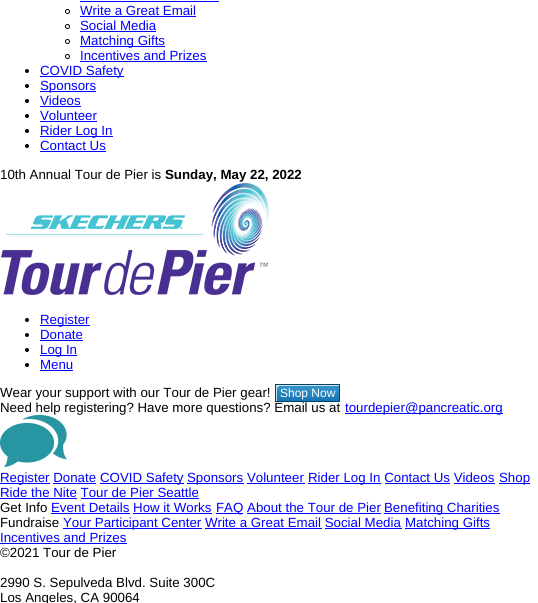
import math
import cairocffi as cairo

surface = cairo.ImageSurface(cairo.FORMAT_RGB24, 538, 603)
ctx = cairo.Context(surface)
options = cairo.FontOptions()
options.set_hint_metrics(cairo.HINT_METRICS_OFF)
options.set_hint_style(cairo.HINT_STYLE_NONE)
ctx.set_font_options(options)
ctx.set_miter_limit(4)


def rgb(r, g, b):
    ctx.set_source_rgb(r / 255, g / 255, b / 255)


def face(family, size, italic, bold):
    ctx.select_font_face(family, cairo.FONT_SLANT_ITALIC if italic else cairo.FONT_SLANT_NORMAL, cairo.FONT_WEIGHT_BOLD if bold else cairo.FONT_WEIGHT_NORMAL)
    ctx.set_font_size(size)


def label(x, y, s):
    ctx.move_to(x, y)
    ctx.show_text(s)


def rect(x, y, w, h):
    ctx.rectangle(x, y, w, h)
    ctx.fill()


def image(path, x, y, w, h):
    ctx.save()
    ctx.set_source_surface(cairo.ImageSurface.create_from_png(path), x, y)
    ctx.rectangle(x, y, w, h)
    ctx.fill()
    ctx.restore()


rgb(255, 255, 255)
ctx.paint()
rgb(0, 0, 255)
rect(80, 1, 139, 1)
ctx.arc(67.5, 11.5, 2, 0, 2 * math.pi)
rgb(0, 0, 0)
ctx.set_line_width(1)
ctx.stroke()
face('Liberation Sans', 13.3, 0, 0)
rgb(0, 0, 255)
label(80, 15, 'Write a Great Email')
rect(80, 16, 116, 1)
ctx.new_path()
ctx.arc(67.5, 26.5, 2, 0, 2 * math.pi)
rgb(0, 0, 0)
ctx.stroke()
rgb(0, 0, 255)
label(80, 30, 'Social Media')
rect(80, 31, 76, 1)
ctx.new_path()
ctx.arc(67.5, 41.5, 2, 0, 2 * math.pi)
rgb(0, 0, 0)
ctx.stroke()
rgb(0, 0, 255)
rect(80, 46, 85, 1)
label(80, 45, 'Matching Gifts')
ctx.new_path()
ctx.arc(67.5, 56.5, 2, 0, 2 * math.pi)
rgb(0, 0, 0)
ctx.stroke()
rgb(0, 0, 255)
label(80, 60, 'Incentives and Prizes')
rect(80, 61, 127, 1)
rgb(0, 0, 0)
ctx.new_path()
ctx.arc(27, 71, 2, 0, 2 * math.pi)
ctx.fill()
rgb(0, 0, 255)
rect(40, 76, 84, 1)
label(40, 75, 'COVID Safety')
rgb(0, 0, 0)
ctx.new_path()
ctx.arc(27, 86, 2, 0, 2 * math.pi)
ctx.fill()
rgb(0, 0, 255)
rect(40, 91, 56, 1)
label(40, 90, 'Sponsors')
rgb(0, 0, 0)
ctx.new_path()
ctx.arc(27, 101, 2, 0, 2 * math.pi)
ctx.fill()
rgb(0, 0, 255)
label(40, 105, 'Videos')
rect(40, 106, 41, 1)
rgb(0, 0, 0)
ctx.new_path()
ctx.arc(27, 116, 2, 0, 2 * math.pi)
ctx.fill()
rgb(0, 0, 255)
label(40, 120, 'Volunteer')
rect(40, 121, 57, 1)
rgb(0, 0, 0)
ctx.new_path()
ctx.arc(27, 131, 2, 0, 2 * math.pi)
ctx.fill()
rgb(0, 0, 255)
rect(40, 136, 73, 1)
label(40, 135, 'Rider Log In')
rgb(0, 0, 0)
ctx.new_path()
ctx.arc(27, 146, 2, 0, 2 * math.pi)
ctx.fill()
rgb(0, 0, 255)
label(40, 150, 'Contact Us')
rect(40, 151, 66, 1)
rgb(0, 0, 0)
label(0, 179, '10th Annual Tour de Pier is')
face('Liberation Sans', 13.3, 0, 1)
label(165, 179, 'Sunday, May 22, 2022')
image('image0.png', 1, 183, 268, 112)
ctx.arc(27, 320, 2, 0, 2 * math.pi)
ctx.fill()
rgb(0, 0, 255)
rect(40, 325, 50, 1)
face('Liberation Sans', 13.3, 0, 0)
label(40, 324, 'Register')
rgb(0, 0, 0)
ctx.new_path()
ctx.arc(27, 335, 2, 0, 2 * math.pi)
ctx.fill()
rgb(0, 0, 255)
label(40, 339, 'Donate')
rect(40, 340, 43, 1)
rgb(0, 0, 0)
ctx.new_path()
ctx.arc(27, 350, 2, 0, 2 * math.pi)
ctx.fill()
rgb(0, 0, 255)
rect(40, 355, 37, 1)
label(40, 354, 'Log In')
rgb(0, 0, 0)
ctx.new_path()
ctx.arc(27, 365, 2, 0, 2 * math.pi)
ctx.fill()
rgb(0, 0, 255)
label(40, 369, 'Menu')
rect(40, 370, 33, 1)
rgb(0, 0, 0)
label(0, 397, 'Wear your support with our Tour de Pier gear!')
image('image1.png', 276, 385, 63, 16)
ctx.rectangle(275.5, 384.5, 64, 17)
rgb(0, 68, 102)
ctx.stroke()
face('Liberation Sans', 12, 0, 0)
rgb(255, 255, 255)
label(280, 397, 'Shop Now')
face('Liberation Sans', 13.3, 0, 0)
rgb(0, 0, 0)
label(0, 412, 'Need help registering? Have more questions? Email us at')
rgb(0, 0, 255)
rect(345, 413, 158, 1)
label(345, 412, 'tourdepier@pancreatic.org')
image('image2.png', 0, 415, 67, 52)
rect(0, 483, 50, 1)
label(0, 482, 'Register Donate')
rect(100, 483, 84, 1)
label(100, 482, 'COVID Safety')
rect(187, 483, 57, 1)
label(187, 482, 'Sponsors Volunteer')
rect(308, 483, 73, 1)
label(308, 482, 'Rider Log In Contact Us Videos')
rect(499, 483, 31, 1)
label(499, 482, 'Shop')
rect(53, 483, 43, 1)
rect(247, 483, 58, 1)
rect(385, 483, 65, 1)
rect(454, 483, 41, 1)
label(0, 497, 'Ride the Nite Tour de Pier Seattle')
rect(0, 498, 77, 1)
rect(81, 498, 118, 1)
rgb(0, 0, 0)
label(0, 512, 'Get Info')
rgb(0, 0, 255)
label(51, 512, 'Event Details How it Works')
rect(51, 513, 79, 1)
rect(216, 513, 27, 1)
label(216, 512, 'FAQ About the Tour de Pier')
rect(384, 513, 116, 1)
label(384, 512, 'Benefiting Charities')
rect(133, 513, 79, 1)
rect(247, 513, 134, 1)
rgb(0, 0, 0)
label(0, 527, 'Fundraise')
rgb(0, 0, 255)
rect(63, 528, 139, 1)
label(63, 527, 'Your Participant Center Write a Great Email Social Media')
rect(405, 528, 85, 1)
label(405, 527, 'Matching Gifts')
rect(205, 528, 117, 1)
rect(325, 528, 77, 1)
label(0, 542, 'Incentives and Prizes')
rect(0, 543, 127, 1)
rgb(0, 0, 0)
label(0, 557, '©2021 Tour de Pier')
label(0, 587, '2990 S. Sepulveda Blvd. Suite 300C')
label(0, 602, 'Los Angeles, CA 90064')
surface.write_to_png('render.png')
